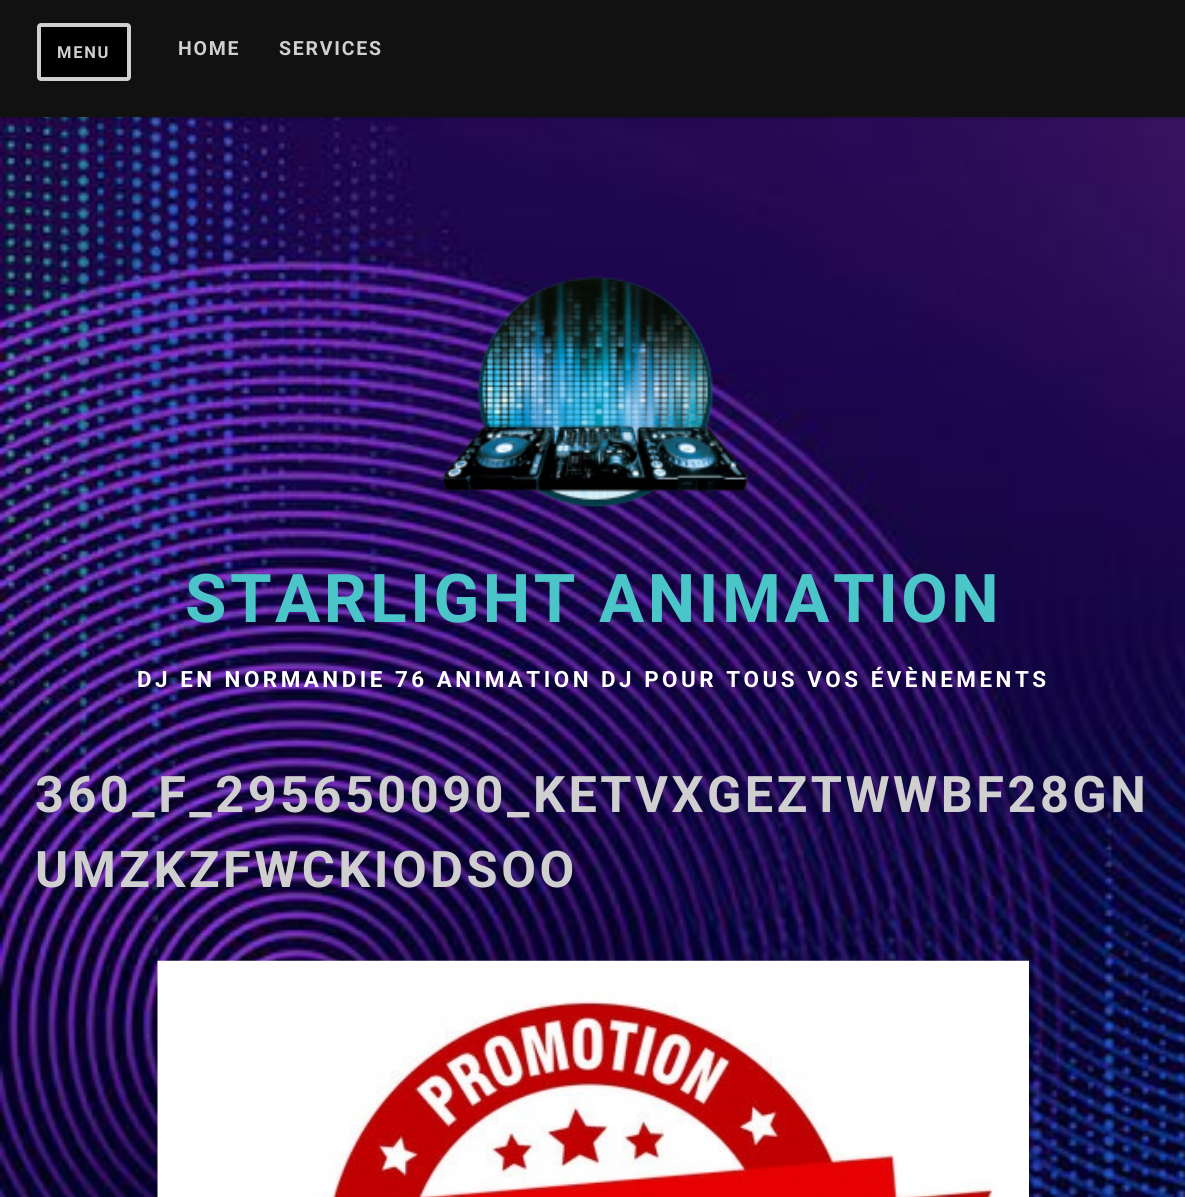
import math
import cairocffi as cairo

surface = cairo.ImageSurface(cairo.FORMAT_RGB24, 1185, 1197)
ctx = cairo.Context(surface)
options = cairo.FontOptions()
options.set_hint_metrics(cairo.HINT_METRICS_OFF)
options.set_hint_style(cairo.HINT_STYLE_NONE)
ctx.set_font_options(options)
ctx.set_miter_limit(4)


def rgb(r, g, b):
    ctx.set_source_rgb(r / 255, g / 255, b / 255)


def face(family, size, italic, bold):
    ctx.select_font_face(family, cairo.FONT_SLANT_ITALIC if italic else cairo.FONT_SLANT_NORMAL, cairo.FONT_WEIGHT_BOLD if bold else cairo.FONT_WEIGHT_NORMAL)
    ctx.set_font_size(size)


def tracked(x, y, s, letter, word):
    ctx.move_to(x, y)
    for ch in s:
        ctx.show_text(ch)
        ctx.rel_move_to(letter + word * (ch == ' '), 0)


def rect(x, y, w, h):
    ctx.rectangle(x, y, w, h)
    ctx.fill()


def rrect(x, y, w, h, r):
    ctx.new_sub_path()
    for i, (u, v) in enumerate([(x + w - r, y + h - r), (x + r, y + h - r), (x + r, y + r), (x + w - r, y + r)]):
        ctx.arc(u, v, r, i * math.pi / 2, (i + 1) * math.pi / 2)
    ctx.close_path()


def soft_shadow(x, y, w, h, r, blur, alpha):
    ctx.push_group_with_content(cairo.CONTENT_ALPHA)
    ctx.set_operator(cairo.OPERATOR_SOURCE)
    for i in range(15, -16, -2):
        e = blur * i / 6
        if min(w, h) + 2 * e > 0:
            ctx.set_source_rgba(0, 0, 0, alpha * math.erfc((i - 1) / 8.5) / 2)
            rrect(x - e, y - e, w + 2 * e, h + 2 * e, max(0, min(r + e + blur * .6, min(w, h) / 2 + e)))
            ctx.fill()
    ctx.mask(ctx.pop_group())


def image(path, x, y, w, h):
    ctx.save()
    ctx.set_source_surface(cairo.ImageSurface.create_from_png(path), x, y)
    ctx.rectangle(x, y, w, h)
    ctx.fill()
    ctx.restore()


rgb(255, 255, 255)
ctx.paint()
image('image0.png', 0, 117, 1185, 1080)
rgb(0, 0, 0)
soft_shadow(0, 2, 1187, 117, 0, 2, 0.2)
rgb(17, 17, 17)
rect(0, 0, 1185, 117)
rgb(0, 0, 0)
rrect(39, 25, 90, 54, 2)
ctx.fill_preserve()
rgb(207, 207, 207)
ctx.set_line_width(4)
ctx.stroke()
face('Roboto', 16.5, 0, 1)
tracked(57, 58, 'MENU', 1.75, 0)
face('Roboto', 19.5, 0, 1)
tracked(178, 55, 'HOME', 1.75, 0)
tracked(279, 55, 'SERVICES', 1.75, 0)
image('image1.png', 442, 276, 306, 231)
face('Roboto', 67.25, 0, 1)
rgb(74, 198, 201)
tracked(185, 622, 'STARLIGHT ANIMATION', 3.5, 0)
face('Roboto', 22.4, 0, 1)
rgb(255, 255, 255)
tracked(137, 687, 'DJ EN NORMANDIE 76 ANIMATION DJ POUR TOUS VOS ÉVÈNEMENTS', 3.5, 0)
face('Roboto', 50.4, 0, 1)
rgb(207, 207, 207)
tracked(35, 812, '360_F_295650090_KETVXGEZTWWBF28GN', 3.5, 0)
tracked(35, 887, 'UMZKZFWCKIODSOO', 3.5, 0)
image('image2.png', 157, 960, 872, 237)
surface.write_to_png('render.png')
